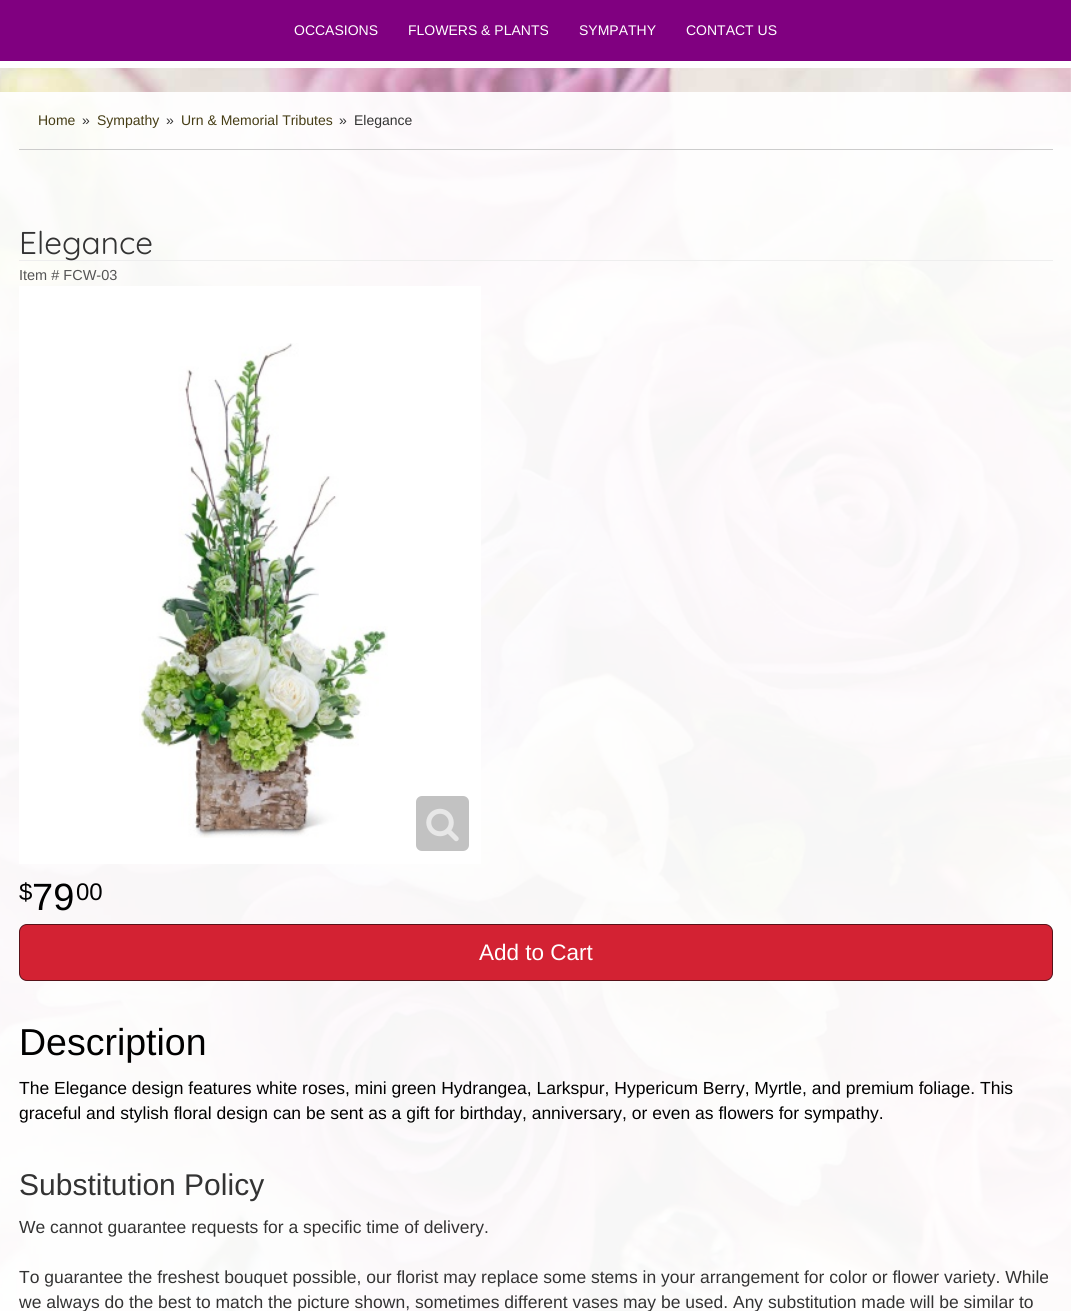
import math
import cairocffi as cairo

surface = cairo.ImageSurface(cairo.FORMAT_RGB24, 1071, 1311)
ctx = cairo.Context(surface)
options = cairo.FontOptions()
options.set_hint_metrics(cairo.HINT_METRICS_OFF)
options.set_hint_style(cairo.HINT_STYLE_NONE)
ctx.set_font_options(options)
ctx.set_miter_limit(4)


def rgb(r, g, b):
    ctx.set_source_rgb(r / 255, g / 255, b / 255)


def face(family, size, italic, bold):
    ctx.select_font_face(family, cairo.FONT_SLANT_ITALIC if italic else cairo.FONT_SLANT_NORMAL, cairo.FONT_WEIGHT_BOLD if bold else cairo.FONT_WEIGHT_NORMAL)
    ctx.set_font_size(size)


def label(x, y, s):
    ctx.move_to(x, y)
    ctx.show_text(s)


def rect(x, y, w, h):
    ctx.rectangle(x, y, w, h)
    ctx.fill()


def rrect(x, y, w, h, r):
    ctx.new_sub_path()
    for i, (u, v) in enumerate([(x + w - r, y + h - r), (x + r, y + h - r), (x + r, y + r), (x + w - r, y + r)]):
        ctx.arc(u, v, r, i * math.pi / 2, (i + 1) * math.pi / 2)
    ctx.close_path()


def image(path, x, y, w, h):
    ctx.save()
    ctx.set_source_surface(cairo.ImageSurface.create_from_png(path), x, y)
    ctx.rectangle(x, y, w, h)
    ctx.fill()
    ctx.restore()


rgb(255, 255, 255)
ctx.paint()
image('image0.png', 0, 68, 1071, 1243)
rgb(128, 0, 128)
rect(0, 0, 1071, 61)
face('Liberation Sans', 14, 0, 0)
rgb(255, 255, 255)
label(294, 35, 'OCCASIONS')
label(408, 35, 'FLOWERS & PLANTS')
label(579, 35, 'SYMPATHY')
label(686, 35, 'CONTACT US')
rgb(204, 204, 204)
rect(19, 149, 1034, 1)
rgb(70, 61, 21)
label(38, 125, 'Home')
rgb(51, 51, 51)
label(82, 125, '»')
rgb(70, 61, 21)
label(97, 125, 'Sympathy')
rgb(51, 51, 51)
label(166, 125, '»')
rgb(70, 61, 21)
label(181, 125, 'Urn & Memorial Tributes')
rgb(51, 51, 51)
label(339, 125, '»')
label(354, 125, 'Elegance')
rgb(238, 238, 238)
rect(19, 260, 1034, 1)
face('Quicksand', 31.5, 0, 0)
rgb(51, 51, 51)
label(19, 254, 'Elegance')
face('Liberation Sans', 14.5, 0, 0)
rgb(85, 85, 85)
label(19, 280, 'Item # FCW-03')
rgb(255, 255, 255)
rect(19, 286, 462, 578)
image('image1.png', 139, 343, 249, 495)
rgb(194, 194, 194)
rrect(416, 796, 53, 55, 6)
ctx.fill()
image('image2.png', 426, 808, 33, 34)
face('Liberation Sans', 24, 0, 0)
rgb(0, 0, 0)
label(19, 900, '$')
face('Liberation Sans', 38, 0, 0)
label(32, 910, '79')
face('Liberation Sans', 24, 0, 0)
label(76, 900, '00')
rgb(211, 34, 51)
rrect(19.5, 924.5, 1033, 56, 7.5)
ctx.fill_preserve()
rgb(88, 18, 25)
ctx.set_line_width(1)
ctx.stroke()
face('Liberation Sans', 22.5, 0, 0)
rgb(255, 255, 255)
label(479, 960, 'Add to Cart')
face('Liberation Sans', 37.5, 0, 0)
rgb(0, 0, 0)
label(19, 1055, 'Description')
face('Liberation Sans', 17.5, 0, 0)
label(19, 1094, 'The Elegance design features white roses, mini green Hydrangea, Larkspur, Hypericum Berry, Myrtle, and premium foliage. This')
label(19, 1119, 'graceful and stylish floral design can be sent as a gift for birthday, anniversary, or even as flowers for sympathy.')
face('Liberation Sans', 30, 0, 0)
rgb(51, 51, 51)
label(19, 1195, 'Substitution Policy')
face('Liberation Sans', 17.5, 0, 0)
label(19, 1233, 'We cannot guarantee requests for a specific time of delivery.')
label(19, 1283, 'To guarantee the freshest bouquet possible, our florist may replace some stems in your arrangement for color or flower variety. While')
label(19, 1308, 'we always do the best to match the picture shown, sometimes different vases may be used. Any substitution made will be similar to')
surface.write_to_png('render.png')
